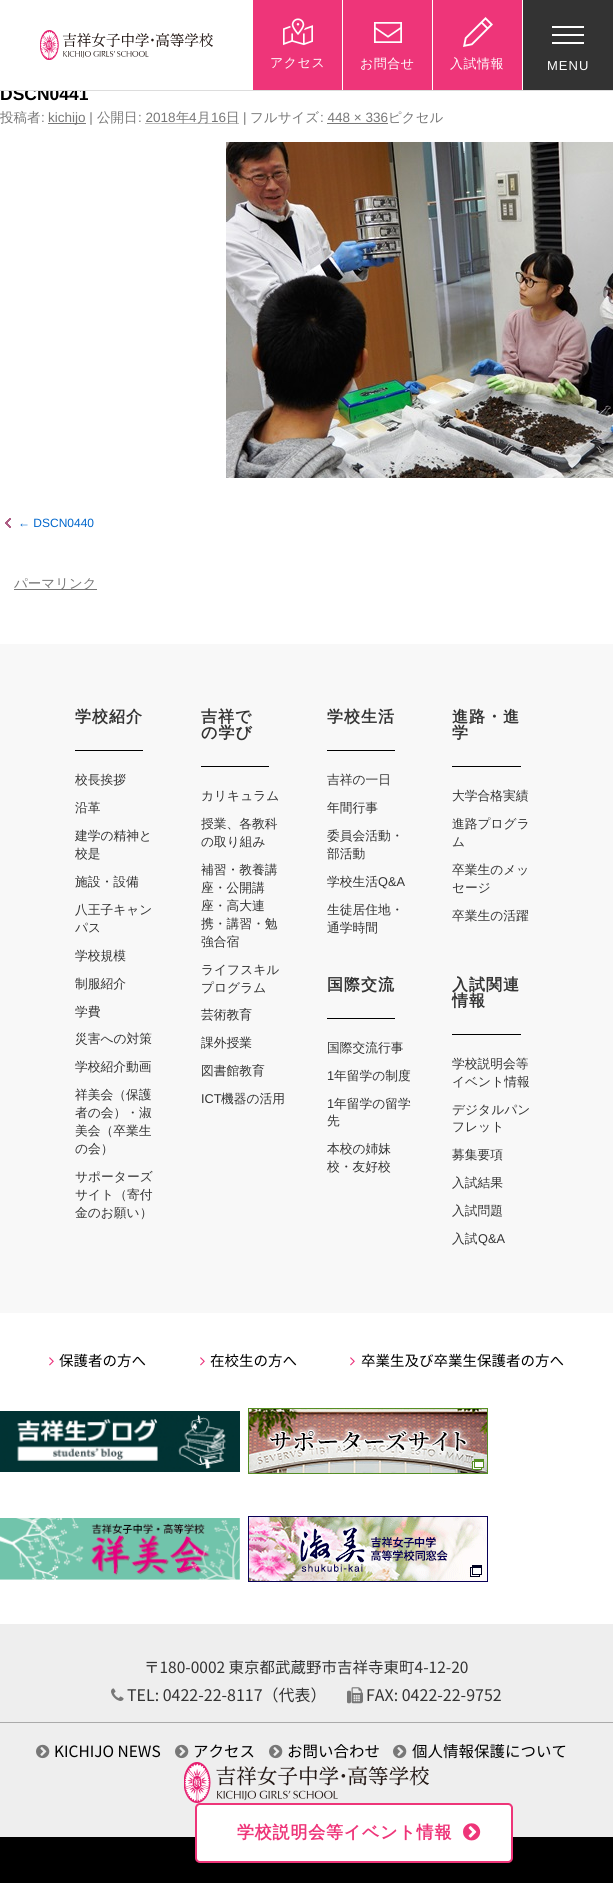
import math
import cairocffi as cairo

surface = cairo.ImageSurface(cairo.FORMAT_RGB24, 613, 1883)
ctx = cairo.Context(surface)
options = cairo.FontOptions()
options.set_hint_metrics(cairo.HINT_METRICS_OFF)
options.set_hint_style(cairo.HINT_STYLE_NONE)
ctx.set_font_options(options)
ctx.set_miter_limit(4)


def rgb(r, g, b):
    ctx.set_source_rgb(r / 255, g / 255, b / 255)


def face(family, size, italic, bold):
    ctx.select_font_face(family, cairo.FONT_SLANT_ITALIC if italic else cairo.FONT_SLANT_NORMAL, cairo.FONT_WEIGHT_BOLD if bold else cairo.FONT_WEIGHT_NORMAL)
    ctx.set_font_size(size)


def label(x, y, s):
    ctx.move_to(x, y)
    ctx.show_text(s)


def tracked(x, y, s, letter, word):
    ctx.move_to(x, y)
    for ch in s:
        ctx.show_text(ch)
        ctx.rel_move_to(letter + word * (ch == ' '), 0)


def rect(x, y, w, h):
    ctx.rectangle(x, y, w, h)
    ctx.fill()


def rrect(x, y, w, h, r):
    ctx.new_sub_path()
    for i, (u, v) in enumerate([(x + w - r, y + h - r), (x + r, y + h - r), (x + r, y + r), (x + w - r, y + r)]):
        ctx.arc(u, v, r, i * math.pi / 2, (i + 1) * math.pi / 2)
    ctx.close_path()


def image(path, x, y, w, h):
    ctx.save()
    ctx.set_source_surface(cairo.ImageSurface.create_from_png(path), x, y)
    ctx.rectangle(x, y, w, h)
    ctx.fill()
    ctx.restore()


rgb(255, 255, 255)
ctx.paint()
face('Liberation Sans', 17.5, 0, 1)
rgb(0, 0, 0)
label(0, 100, 'DSCN0441')
rgb(255, 255, 255)
rect(1, 87, 85, 3)
rgb(221, 221, 221)
rect(0, 90, 613, 1)
image('image0.png', 40, 30, 173, 30)
rgb(238, 53, 121)
rect(253, 0, 89, 90)
image('image1.png', 283, 18, 30, 28)
face('WenQuanYi Zen Hei Medium', 13, 0, 0)
rgb(255, 255, 255)
tracked(270, 67, 'アクセス', 0.5, 0)
rgb(238, 53, 121)
rect(343, 0, 89, 90)
image('image2.png', 374, 22, 28, 21)
rgb(255, 255, 255)
tracked(360, 68, 'お問合せ', 0.5, 0)
rgb(238, 53, 121)
rect(433, 0, 89, 90)
image('image3.png', 463, 17, 30, 30)
rgb(255, 255, 255)
tracked(450, 68, '入試情報', 0.5, 0)
rgb(51, 51, 51)
rect(523, 0, 90, 90)
rgb(255, 255, 255)
rect(552, 34, 32, 2)
rect(552, 26, 32, 2)
rect(552, 42, 32, 2)
face('Liberation Sans', 13, 0, 0)
tracked(547, 70, 'MENU', 1, 0)
face('WenQuanYi Zen Hei Medium', 13.5, 0, 0)
rgb(119, 119, 119)
label(0, 122, '投稿者')
face('Liberation Sans', 13.5, 0, 0)
label(41, 122, ':')
rect(48, 123, 38, 1)
label(48, 122, 'kichijo |')
face('WenQuanYi Zen Hei Medium', 13.5, 0, 0)
label(97, 122, '公開日')
face('Liberation Sans', 13.5, 0, 0)
label(138, 122, ': 2018')
ctx.new_path()
ctx.move_to(145.5, 123.5)
ctx.line_to(239.5, 123.5)
ctx.set_line_width(1)
ctx.set_dash([1, 1])
ctx.stroke()
face('WenQuanYi Zen Hei Medium', 13.5, 0, 0)
label(176, 122, '年')
face('Liberation Sans', 13.5, 0, 0)
label(189, 122, '4')
face('WenQuanYi Zen Hei Medium', 13.5, 0, 0)
label(197, 122, '月')
face('Liberation Sans', 13.5, 0, 0)
label(211, 122, '16')
face('WenQuanYi Zen Hei Medium', 13.5, 0, 0)
label(226, 122, '日')
face('Liberation Sans', 13.5, 0, 0)
label(243, 122, '|')
face('WenQuanYi Zen Hei Medium', 13.5, 0, 0)
label(250, 122, 'フルサイズ')
face('Liberation Sans', 13.5, 0, 0)
label(320, 122, ': 448 × 336')
face('WenQuanYi Zen Hei Medium', 13.5, 0, 0)
label(388, 122, 'ピクセル')
rect(327, 123, 61, 1)
image('image4.png', 226, 142, 387, 336)
image('image5.png', 5, 518, 6, 10)
face('Liberation Sans', 12, 0, 0)
rgb(0, 102, 204)
label(18, 527, '← DSCN0440')
rgb(119, 119, 119)
rect(14, 589, 83, 1)
face('WenQuanYi Zen Hei Medium', 13.5, 0, 0)
label(14, 588, 'パーマリンク')
rgb(238, 238, 238)
rect(0, 1624, 613, 213)
rgb(248, 248, 248)
rect(0, 644, 613, 669)
rgb(0, 0, 0)
rect(75, 750, 68, 1)
face('WenQuanYi Zen Hei', 16, 0, 1)
rgb(51, 51, 51)
tracked(75, 722, '学校紹介', 1, 0)
face('WenQuanYi Zen Hei Medium', 12.75, 0, 0)
label(75, 784, '校長挨拶')
label(75, 812, '沿革')
label(75, 840, '建学の精神と')
label(75, 858, '校是')
label(75, 886, '施設・設備')
label(75, 914, '八王子キャン')
label(75, 932, 'パス')
label(75, 960, '学校規模')
label(75, 988, '制服紹介')
label(75, 1016, '学費')
label(75, 1043, '災害への対策')
label(75, 1071, '学校紹介動画')
label(75, 1099, '祥美会（保護')
label(75, 1117, '者の会）・淑')
label(75, 1135, '美会（卒業生')
label(75, 1153, 'の会）')
label(75, 1181, 'サポーターズ')
label(75, 1199, 'サイト（寄付')
label(75, 1217, '金のお願い）')
rgb(0, 0, 0)
rect(201, 766, 68, 1)
face('WenQuanYi Zen Hei', 16, 0, 1)
rgb(51, 51, 51)
tracked(201, 722, '吉祥で', 1, 0)
tracked(201, 738, 'の学び', 1, 0)
face('WenQuanYi Zen Hei Medium', 12.75, 0, 0)
label(201, 800, 'カリキュラム')
label(201, 828, '授業、各教科')
label(201, 846, 'の取り組み')
label(201, 874, '補習・教養講')
label(201, 892, '座・公開講')
label(201, 910, '座・高大連')
label(201, 928, '携・講習・勉')
label(201, 946, '強合宿')
label(201, 974, 'ライフスキル')
label(201, 992, 'プログラム')
label(201, 1019, '芸術教育')
label(201, 1047, '課外授業')
label(201, 1075, '図書館教育')
face('Liberation Sans', 12.75, 0, 0)
label(201, 1103, 'ICT')
face('WenQuanYi Zen Hei Medium', 12.75, 0, 0)
label(221, 1103, '機器の活用')
rgb(0, 0, 0)
rect(327, 750, 68, 1)
face('WenQuanYi Zen Hei', 16, 0, 1)
rgb(51, 51, 51)
tracked(327, 722, '学校生活', 1, 0)
face('WenQuanYi Zen Hei Medium', 12.75, 0, 0)
label(327, 784, '吉祥の一日')
label(327, 812, '年間行事')
label(327, 840, '委員会活動・')
label(327, 858, '部活動')
label(327, 886, '学校生活')
face('Liberation Sans', 12.75, 0, 0)
label(378, 886, 'Q&A')
face('WenQuanYi Zen Hei Medium', 12.75, 0, 0)
label(327, 914, '生徒居住地・')
label(327, 932, '通学時間')
rgb(0, 0, 0)
rect(452, 766, 69, 1)
face('WenQuanYi Zen Hei', 16, 0, 1)
rgb(51, 51, 51)
tracked(452, 722, '進路・進', 1, 0)
tracked(452, 738, '学', 1, 0)
face('WenQuanYi Zen Hei Medium', 12.75, 0, 0)
label(452, 800, '大学合格実績')
label(452, 828, '進路プログラ')
label(452, 846, 'ム')
label(452, 874, '卒業生のメッ')
label(452, 892, 'セージ')
label(452, 920, '卒業生の活躍')
rgb(0, 0, 0)
rect(327, 1018, 68, 1)
face('WenQuanYi Zen Hei', 16, 0, 1)
rgb(51, 51, 51)
tracked(327, 990, '国際交流', 1, 0)
face('WenQuanYi Zen Hei Medium', 12.75, 0, 0)
label(327, 1052, '国際交流行事')
face('Liberation Sans', 12.75, 0, 0)
label(327, 1080, '1')
face('WenQuanYi Zen Hei Medium', 12.75, 0, 0)
label(334, 1080, '年留学の制度')
face('Liberation Sans', 12.75, 0, 0)
label(327, 1108, '1')
face('WenQuanYi Zen Hei Medium', 12.75, 0, 0)
label(334, 1108, '年留学の留学')
label(327, 1125, '先')
label(327, 1153, '本校の姉妹')
label(327, 1171, '校・友好校')
rgb(0, 0, 0)
rect(452, 1034, 69, 1)
face('WenQuanYi Zen Hei', 16, 0, 1)
rgb(51, 51, 51)
tracked(452, 990, '入試関連', 1, 0)
tracked(452, 1006, '情報', 1, 0)
face('WenQuanYi Zen Hei Medium', 12.75, 0, 0)
label(452, 1068, '学校説明会等')
label(452, 1086, 'イベント情報')
label(452, 1114, 'デジタルパン')
label(452, 1131, 'フレット')
label(452, 1159, '募集要項')
label(452, 1187, '入試結果')
label(452, 1215, '入試問題')
label(452, 1243, '入試')
face('Liberation Sans', 12.75, 0, 0)
label(478, 1243, 'Q&A')
image('image6.png', 49, 1357, 5, 9)
face('Noto Sans JP', 14.5, 0, 0)
rgb(0, 0, 0)
label(59, 1366, '保護者の方へ')
image('image6.png', 200, 1357, 5, 9)
label(210, 1366, '在校生の方へ')
image('image6.png', 350, 1357, 5, 9)
label(361, 1366, '卒業生及び卒業生保護者の方へ')
image('image7.png', 0, 1411, 240, 61)
image('image8.png', 248, 1408, 240, 66)
image('image9.png', 0, 1518, 240, 62)
image('image10.png', 248, 1516, 240, 66)
face('Noto Sans JP', 15.5, 0, 0)
rgb(51, 51, 51)
label(144, 1673, '〒180-0002 東京都武蔵野市吉祥寺東町4-12-20')
image('image11.png', 111, 1688, 13, 13)
face('Noto Sans JP', 16, 0, 0)
label(127, 1701, 'TEL: 0422-22-8117（代表）')
image('image12.png', 347, 1687, 16, 17)
label(366, 1701, 'FAX: 0422-22-9752')
rgb(170, 170, 170)
rect(0, 1722, 613, 1)
image('image13.png', 36, 1744, 14, 15)
face('Noto Sans JP', 15.5, 0, 0)
rgb(0, 0, 0)
label(54, 1757, 'KICHIJO NEWS')
image('image13.png', 175, 1744, 14, 15)
label(193, 1757, 'アクセス')
image('image13.png', 269, 1744, 14, 15)
label(287, 1757, 'お問い合わせ')
image('image13.png', 393, 1744, 14, 15)
label(412, 1757, '個人情報保護について')
image('image14.png', 184, 1762, 245, 41)
rect(0, 1837, 613, 46)
rgb(255, 255, 255)
rrect(196, 1804, 316, 58, 4)
ctx.fill_preserve()
rgb(238, 53, 121)
ctx.set_line_width(2)
ctx.set_dash([])
ctx.stroke()
face('WenQuanYi Zen Hei', 17, 0, 1)
tracked(237, 1838, '学校説明会等イベント情報', 0.8, 0)
image('image15.png', 463, 1823, 18, 18)
surface.write_to_png('render.png')
